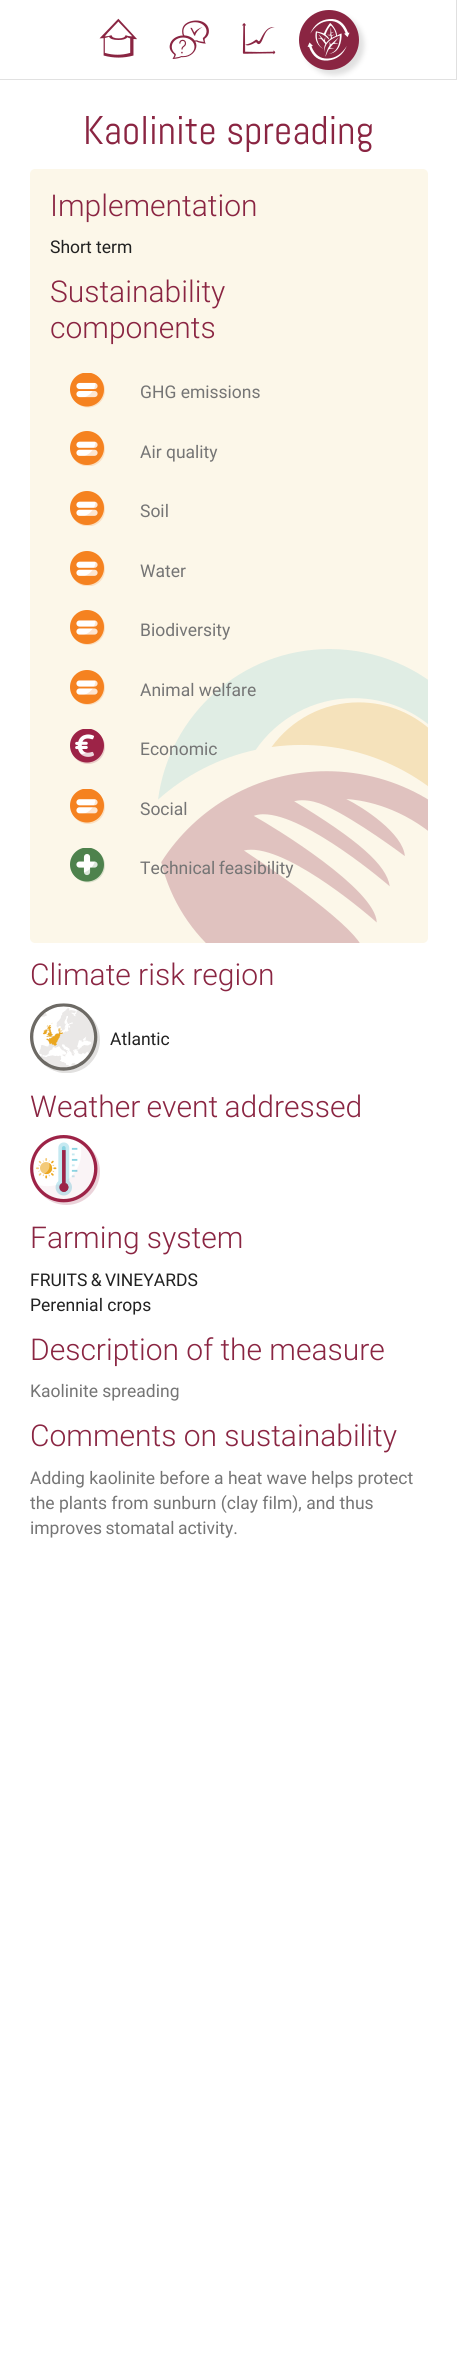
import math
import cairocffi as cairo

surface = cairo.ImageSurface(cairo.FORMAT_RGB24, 457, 2369)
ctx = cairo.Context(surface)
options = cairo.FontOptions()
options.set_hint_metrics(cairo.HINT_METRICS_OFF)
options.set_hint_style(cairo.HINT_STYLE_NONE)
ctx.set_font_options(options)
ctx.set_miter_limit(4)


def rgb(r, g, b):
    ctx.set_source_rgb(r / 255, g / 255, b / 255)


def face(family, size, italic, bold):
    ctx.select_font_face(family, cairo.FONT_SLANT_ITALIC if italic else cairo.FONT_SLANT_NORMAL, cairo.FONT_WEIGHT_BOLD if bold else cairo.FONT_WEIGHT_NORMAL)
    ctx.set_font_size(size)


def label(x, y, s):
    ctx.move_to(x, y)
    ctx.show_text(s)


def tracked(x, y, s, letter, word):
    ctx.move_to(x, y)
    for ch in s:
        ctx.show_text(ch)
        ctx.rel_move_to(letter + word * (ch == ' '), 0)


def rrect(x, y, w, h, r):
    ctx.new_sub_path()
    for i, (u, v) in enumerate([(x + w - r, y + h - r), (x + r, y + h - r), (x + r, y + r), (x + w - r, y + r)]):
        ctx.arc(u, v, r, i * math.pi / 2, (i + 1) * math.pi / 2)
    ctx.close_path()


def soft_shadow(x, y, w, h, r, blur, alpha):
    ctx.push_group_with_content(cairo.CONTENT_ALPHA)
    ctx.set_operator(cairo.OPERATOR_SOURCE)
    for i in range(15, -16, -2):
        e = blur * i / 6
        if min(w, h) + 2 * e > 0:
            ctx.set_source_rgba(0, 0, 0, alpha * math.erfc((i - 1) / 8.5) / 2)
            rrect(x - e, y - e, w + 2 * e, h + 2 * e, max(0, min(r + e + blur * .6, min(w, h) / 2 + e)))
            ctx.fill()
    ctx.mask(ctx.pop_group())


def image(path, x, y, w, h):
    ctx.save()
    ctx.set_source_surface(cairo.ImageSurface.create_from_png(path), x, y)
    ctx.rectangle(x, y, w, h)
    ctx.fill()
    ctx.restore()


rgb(255, 255, 255)
ctx.paint()
rgb(224, 224, 224)
ctx.new_path()
ctx.move_to(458, 0)
ctx.line_to(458, 80)
ctx.line_to(456, 79)
ctx.line_to(456, 0)
ctx.close_path()
ctx.fill()
ctx.set_source_rgba(0, 0, 0, 0.12)
ctx.new_path()
ctx.move_to(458, 80)
ctx.line_to(0, 80)
ctx.line_to(0, 79)
ctx.line_to(456, 79)
ctx.close_path()
ctx.fill()
image('image0.png', 99, 18, 38, 40)
image('image1.png', 169, 20, 40, 39)
image('image2.png', 242, 23, 34, 32)
rgb(224, 224, 224)
soft_shadow(304, 15, 60, 60, 30, 2.5, 1)
rgb(138, 37, 66)
ctx.arc(329, 40, 30, 0, 2 * math.pi)
ctx.fill()
image('image3.png', 307, 19, 43, 42)
face('Abel', 40, 0, 0)
label(83, 144, 'Kaolinite spreading')
rgb(252, 247, 233)
rrect(30, 169, 398, 774, 5)
ctx.fill()
image('image4.png', 158, 649, 270, 294)
face('Roboto Light', 30, 0, 0)
rgb(138, 37, 66)
label(50, 216, 'Implementation')
face('Roboto', 17.5, 0, 0)
rgb(33, 33, 33)
label(50, 253, 'Short term')
face('Roboto Light', 30, 0, 0)
rgb(138, 37, 66)
label(50, 302, 'Sustainability')
label(50, 338, 'components')
image('image5.png', 70, 373, 35, 35)
face('Roboto', 17.5, 0, 0)
rgb(117, 117, 117)
label(140, 398, 'GHG emissions')
image('image6.png', 70, 431, 35, 35)
label(140, 458, 'Air quality')
image('image6.png', 70, 491, 35, 35)
label(140, 517, 'Soil')
image('image6.png', 70, 551, 35, 35)
label(140, 577, 'Water')
image('image7.png', 70, 610, 35, 35)
label(140, 636, 'Biodiversity')
image('image7.png', 70, 670, 35, 35)
label(140, 696, 'Animal welfare')
image('image8.png', 70, 729, 35, 35)
label(140, 755, 'Economic')
image('image9.png', 70, 789, 35, 35)
label(140, 815, 'Social')
image('image10.png', 70, 848, 35, 35)
tracked(140, 874, 'Technical feasibility', 0, -1)
face('Roboto Light', 30, 0, 0)
rgb(138, 37, 66)
label(30, 985, 'Climate risk region')
image('image11.png', 30, 1003, 70, 70)
face('Roboto', 17.5, 0, 0)
rgb(33, 33, 33)
label(110, 1045, 'Atlantic')
face('Roboto Light', 30, 0, 0)
rgb(138, 37, 66)
tracked(30, 1117, 'Weather event addressed', 0, -1)
image('image12.png', 30, 1135, 70, 70)
label(30, 1248, 'Farming system')
face('Roboto', 17.5, 0, 0)
rgb(33, 33, 33)
tracked(30, 1286, 'FRUITS & VINEYARDS', 0, -1)
label(30, 1311, 'Perennial crops')
face('Roboto Light', 30, 0, 0)
rgb(138, 37, 66)
label(30, 1360, 'Description of the measure')
face('Roboto', 17.5, 0, 0)
rgb(117, 117, 117)
label(30, 1397, 'Kaolinite spreading')
face('Roboto Light', 30, 0, 0)
rgb(138, 37, 66)
label(30, 1446, 'Comments on sustainability')
face('Roboto', 17.5, 0, 0)
rgb(117, 117, 117)
label(30, 1484, 'Adding kaolinite before a heat wave helps protect')
label(30, 1509, 'the plants from sunburn (clay film), and thus')
tracked(30, 1534, 'improves stomatal activity.', 0, -1)
surface.write_to_png('render.png')
